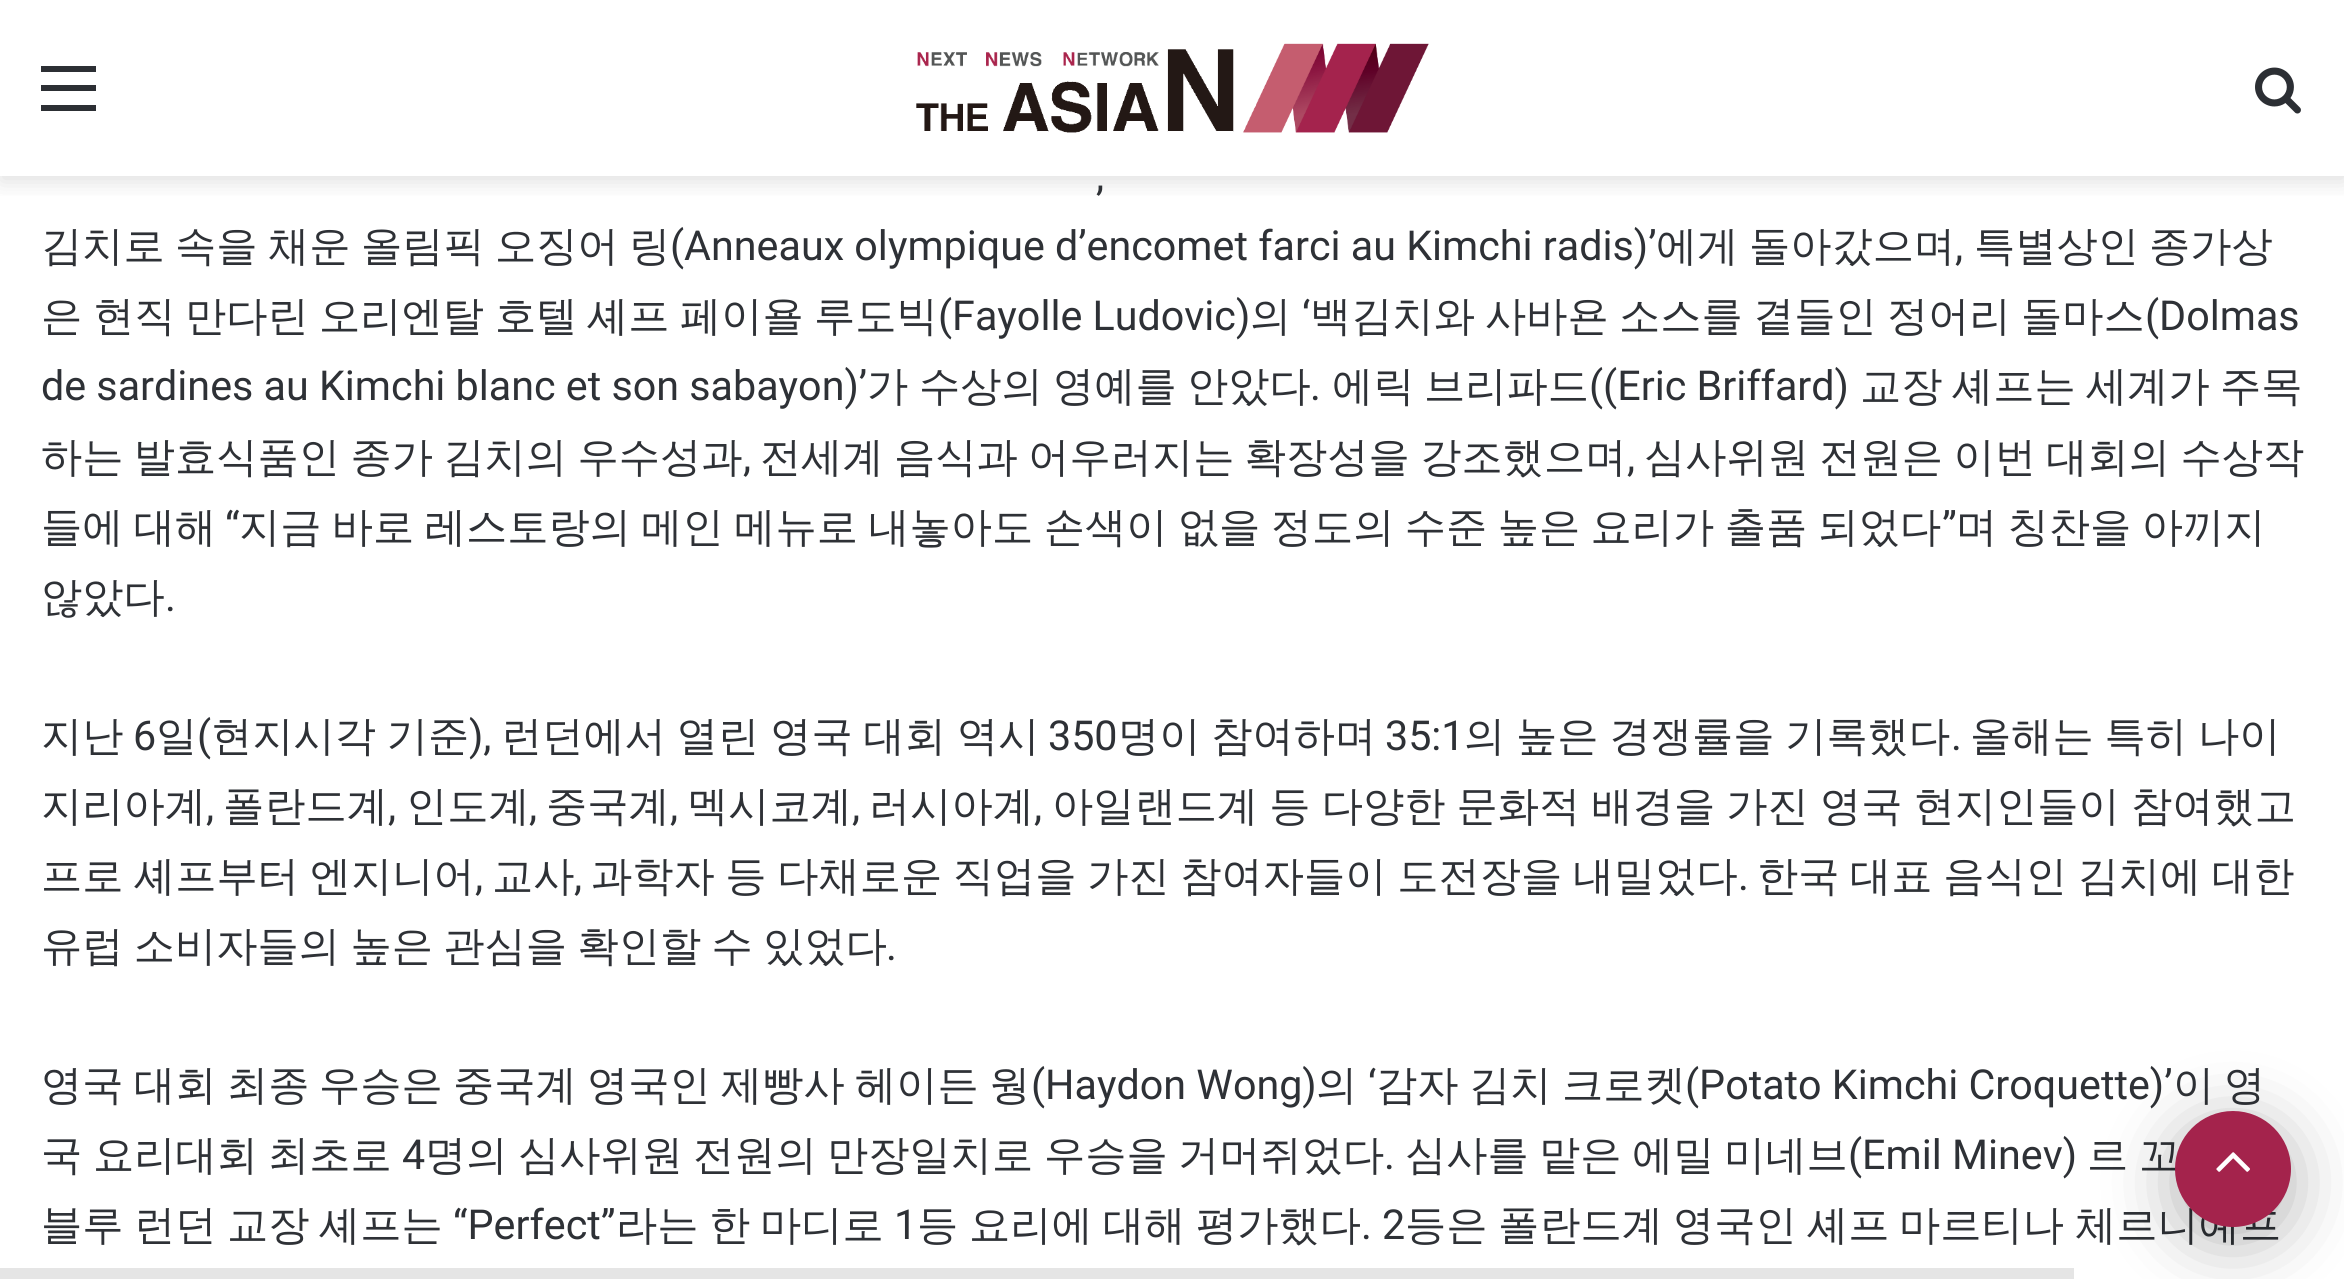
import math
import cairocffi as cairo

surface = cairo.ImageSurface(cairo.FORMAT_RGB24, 2344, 1279)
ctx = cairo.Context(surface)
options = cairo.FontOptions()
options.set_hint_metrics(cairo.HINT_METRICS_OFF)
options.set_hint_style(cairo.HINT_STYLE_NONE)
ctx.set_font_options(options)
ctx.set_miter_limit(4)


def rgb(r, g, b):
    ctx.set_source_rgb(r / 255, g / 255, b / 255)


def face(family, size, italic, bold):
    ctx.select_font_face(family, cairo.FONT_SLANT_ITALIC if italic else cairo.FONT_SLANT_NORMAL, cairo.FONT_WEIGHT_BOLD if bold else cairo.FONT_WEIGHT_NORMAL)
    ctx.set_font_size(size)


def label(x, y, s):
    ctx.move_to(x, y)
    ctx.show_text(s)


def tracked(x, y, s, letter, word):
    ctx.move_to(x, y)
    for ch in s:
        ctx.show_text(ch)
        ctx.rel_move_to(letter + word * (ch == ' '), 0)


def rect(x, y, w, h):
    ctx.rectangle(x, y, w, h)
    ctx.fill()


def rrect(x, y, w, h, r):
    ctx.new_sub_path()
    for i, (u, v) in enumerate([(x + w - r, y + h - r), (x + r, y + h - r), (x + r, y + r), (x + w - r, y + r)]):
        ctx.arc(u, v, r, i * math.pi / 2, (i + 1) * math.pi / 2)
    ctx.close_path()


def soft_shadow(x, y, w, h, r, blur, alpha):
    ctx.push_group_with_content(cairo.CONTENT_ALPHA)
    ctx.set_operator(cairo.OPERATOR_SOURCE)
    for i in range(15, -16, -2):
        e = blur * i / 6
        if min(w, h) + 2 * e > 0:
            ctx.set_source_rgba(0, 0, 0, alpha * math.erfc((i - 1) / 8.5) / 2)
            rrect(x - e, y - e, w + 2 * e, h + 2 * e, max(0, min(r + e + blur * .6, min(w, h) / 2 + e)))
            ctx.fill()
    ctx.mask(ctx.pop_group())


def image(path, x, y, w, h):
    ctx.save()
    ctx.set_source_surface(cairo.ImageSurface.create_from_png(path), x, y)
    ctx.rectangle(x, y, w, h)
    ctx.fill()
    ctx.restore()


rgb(255, 255, 255)
ctx.paint()
ctx.save()
ctx.rectangle(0, 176, 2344, 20)
ctx.clip()
rgb(99, 99, 99)
soft_shadow(0, 6, 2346, 176, 0, 11, 0.2)
ctx.restore()
rgb(44, 47, 52)
rect(41, 85, 55, 6)
rect(41, 66, 55, 6)
rect(41, 105, 55, 6)
image('image0.png', 916, 43, 513, 90)
image('image1.png', 2255, 67, 46, 47)
face('Roboto', 41.25, 0, 0)
rgb(46, 49, 54)
label(1096, 190, ',')
face('WenQuanYi Zen Hei Medium', 41.25, 0, 0)
label(41, 260, '김치로')
label(175, 260, '속을')
label(268, 260, '채운')
label(361, 260, '올림픽')
label(495, 260, '오징어')
label(629, 260, '링')
face('Roboto', 41.25, 0, 0)
label(670, 260, '(Anneaux olympique d’encomet farci au Kimchi radis)’')
face('WenQuanYi Zen Hei Medium', 41.25, 0, 0)
label(1656, 260, '에게')
label(1749, 260, '돌아갔으며')
face('Roboto', 41.25, 0, 0)
label(1955, 260, ',')
face('WenQuanYi Zen Hei Medium', 41.25, 0, 0)
label(1974, 260, '특별상인')
label(2149, 260, '종가상')
label(41, 330, '은')
label(93, 330, '현직')
label(185, 330, '만다린')
label(319, 330, '오리엔탈')
label(495, 330, '호텔')
label(587, 330, '셰프')
label(680, 330, '페이욜')
label(814, 330, '루도빅')
face('Roboto', 41.25, 0, 0)
label(938, 330, '(Fayolle Ludovic)')
face('WenQuanYi Zen Hei Medium', 41.25, 0, 0)
label(1250, 330, '의')
face('Roboto', 41.25, 0, 0)
label(1302, 330, '‘')
face('WenQuanYi Zen Hei Medium', 41.25, 0, 0)
label(1310, 330, '백김치와')
label(1485, 330, '사바욘')
label(1619, 330, '소스를')
label(1753, 330, '곁들인')
label(1887, 330, '정어리')
label(2021, 330, '돌마스')
face('Roboto', 41.25, 0, 0)
label(2145, 330, '(Dolmas')
label(41, 400, 'de sardines au Kimchi blanc et son sabayon)’')
face('WenQuanYi Zen Hei Medium', 41.25, 0, 0)
label(867, 400, '가')
label(919, 400, '수상의')
label(1053, 400, '영예를')
label(1187, 400, '안았다')
face('Roboto', 41.25, 0, 0)
label(1310, 400, '.')
face('WenQuanYi Zen Hei Medium', 41.25, 0, 0)
label(1332, 400, '에릭')
label(1424, 400, '브리파드')
face('Roboto', 41.25, 0, 0)
label(1589, 400, '((Eric Briffard)')
face('WenQuanYi Zen Hei Medium', 41.25, 0, 0)
label(1860, 400, '교장')
label(1952, 400, '셰프는')
label(2086, 400, '세계가')
label(2220, 400, '주목')
tracked(41, 471, '하는 발효식품인 종가 김치의 우수성과', 0, -2)
face('Roboto', 41.25, 0, 0)
label(743, 471, ',')
face('WenQuanYi Zen Hei Medium', 41.25, 0, 0)
tracked(760, 471, '전세계 음식과 어우러지는 확장성을 강조했으며', 0, -2)
face('Roboto', 41.25, 0, 0)
label(1627, 471, ',')
face('WenQuanYi Zen Hei Medium', 41.25, 0, 0)
tracked(1644, 471, '심사위원 전원은 이번 대회의 수상작', 0, -2)
tracked(41, 541, '들에 대해', 0, -2)
face('Roboto', 41.25, 0, 0)
label(225, 541, '“')
face('WenQuanYi Zen Hei Medium', 41.25, 0, 0)
tracked(239, 541, '지금 바로 레스토랑의 메인 메뉴로 내놓아도 손색이 없을 정도의 수준 높은 요리가 출품 되었다', 0, -2)
face('Roboto', 41.25, 0, 0)
label(1942, 541, '”')
face('WenQuanYi Zen Hei Medium', 41.25, 0, 0)
tracked(1956, 541, '며 칭찬을 아끼지', 0, -2)
label(41, 611, '않았다')
face('Roboto', 41.25, 0, 0)
label(165, 611, '.')
face('WenQuanYi Zen Hei Medium', 41.25, 0, 0)
label(41, 750, '지난')
face('Roboto', 41.25, 0, 0)
label(133, 750, '6')
face('WenQuanYi Zen Hei Medium', 41.25, 0, 0)
label(156, 750, '일')
face('Roboto', 41.25, 0, 0)
label(197, 750, '(')
face('WenQuanYi Zen Hei Medium', 41.25, 0, 0)
tracked(211, 750, '현지시각 기준', 0, -1.5)
face('Roboto', 41.25, 0, 0)
label(469, 750, '),')
face('WenQuanYi Zen Hei Medium', 41.25, 0, 0)
tracked(501, 750, '런던에서 열린 영국 대회 역시', 0, -1.5)
face('Roboto', 41.25, 0, 0)
label(1048, 750, '350')
face('WenQuanYi Zen Hei Medium', 41.25, 0, 0)
tracked(1118, 750, '명이 참여하며', 0, -1.5)
face('Roboto', 41.25, 0, 0)
label(1385, 750, '35:1')
face('WenQuanYi Zen Hei Medium', 41.25, 0, 0)
tracked(1464, 750, '의 높은 경쟁률을 기록했다', 0, -1.5)
face('Roboto', 41.25, 0, 0)
label(1951, 750, '.')
face('WenQuanYi Zen Hei Medium', 41.25, 0, 0)
tracked(1970, 750, '올해는 특히 나이', 0, -1.5)
label(41, 820, '지리아계')
face('Roboto', 41.25, 0, 0)
label(206, 820, ',')
face('WenQuanYi Zen Hei Medium', 41.25, 0, 0)
label(223, 820, '폴란드계')
face('Roboto', 41.25, 0, 0)
label(388, 820, ',')
face('WenQuanYi Zen Hei Medium', 41.25, 0, 0)
label(406, 820, '인도계')
face('Roboto', 41.25, 0, 0)
label(529, 820, ',')
face('WenQuanYi Zen Hei Medium', 41.25, 0, 0)
label(546, 820, '중국계')
face('Roboto', 41.25, 0, 0)
label(670, 820, ',')
face('WenQuanYi Zen Hei Medium', 41.25, 0, 0)
label(687, 820, '멕시코계')
face('Roboto', 41.25, 0, 0)
label(852, 820, ',')
face('WenQuanYi Zen Hei Medium', 41.25, 0, 0)
label(869, 820, '러시아계')
face('Roboto', 41.25, 0, 0)
label(1034, 820, ',')
face('WenQuanYi Zen Hei Medium', 41.25, 0, 0)
tracked(1052, 820, '아일랜드계 등 다양한 문화적 배경을 가진 영국 현지인들이 참여했고', 0, -1.25)
tracked(41, 890, '프로 셰프부터 엔지니어', 0, -1.75)
face('Roboto', 41.25, 0, 0)
label(475, 890, ',')
face('WenQuanYi Zen Hei Medium', 41.25, 0, 0)
label(492, 890, '교사')
face('Roboto', 41.25, 0, 0)
label(574, 890, ',')
face('WenQuanYi Zen Hei Medium', 41.25, 0, 0)
tracked(591, 890, '과학자 등 다채로운 직업을 가진 참여자들이 도전장을 내밀었다', 0, -1.75)
face('Roboto', 41.25, 0, 0)
label(1738, 890, '.')
face('WenQuanYi Zen Hei Medium', 41.25, 0, 0)
tracked(1757, 890, '한국 대표 음식인 김치에 대한', 0, -1.75)
tracked(41, 960, '유럽 소비자들의 높은 관심을 확인할 수 있었다', 0, -2)
face('Roboto', 41.25, 0, 0)
label(886, 960, '.')
face('WenQuanYi Zen Hei Medium', 41.25, 0, 0)
label(41, 1099, '영국')
label(134, 1099, '대회')
label(227, 1099, '최종')
label(319, 1099, '우승은')
label(453, 1099, '중국계')
label(587, 1099, '영국인')
label(721, 1099, '제빵사')
label(855, 1099, '헤이든')
label(989, 1099, '웡')
face('Roboto', 41.25, 0, 0)
label(1031, 1099, '(Haydon Wong)')
face('WenQuanYi Zen Hei Medium', 41.25, 0, 0)
label(1316, 1099, '의')
face('Roboto', 41.25, 0, 0)
label(1368, 1099, '‘')
face('WenQuanYi Zen Hei Medium', 41.25, 0, 0)
label(1376, 1099, '감자')
label(1469, 1099, '김치')
label(1562, 1099, '크로켓')
face('Roboto', 41.25, 0, 0)
label(1685, 1099, '(Potato Kimchi Croquette)’')
face('WenQuanYi Zen Hei Medium', 41.25, 0, 0)
label(2173, 1099, '이')
label(2224, 1099, '영')
label(41, 1169, '국')
label(93, 1169, '요리대회')
label(268, 1169, '최초로')
face('Roboto', 41.25, 0, 0)
label(402, 1169, '4')
face('WenQuanYi Zen Hei Medium', 41.25, 0, 0)
label(425, 1169, '명의')
label(518, 1169, '심사위원')
label(693, 1169, '전원의')
label(827, 1169, '만장일치로')
label(1044, 1169, '우승을')
label(1178, 1169, '거머쥐었다')
face('Roboto', 41.25, 0, 0)
label(1384, 1169, '.')
face('WenQuanYi Zen Hei Medium', 41.25, 0, 0)
label(1405, 1169, '심사를')
label(1539, 1169, '맡은')
label(1632, 1169, '에밀')
label(1724, 1169, '미네브')
face('Roboto', 41.25, 0, 0)
label(1848, 1169, '(Emil Minev)')
face('WenQuanYi Zen Hei Medium', 41.25, 0, 0)
label(2087, 1169, '르')
label(2139, 1169, '꼬')
label(41, 1239, '블루')
label(134, 1239, '런던')
label(227, 1239, '교장')
label(319, 1239, '셰프는')
face('Roboto', 41.25, 0, 0)
label(453, 1239, '“Perfect”')
face('WenQuanYi Zen Hei Medium', 41.25, 0, 0)
label(616, 1239, '라는')
label(709, 1239, '한')
label(760, 1239, '마디로')
face('Roboto', 41.25, 0, 0)
label(894, 1239, '1')
face('WenQuanYi Zen Hei Medium', 41.25, 0, 0)
label(917, 1239, '등')
label(969, 1239, '요리에')
label(1103, 1239, '대해')
label(1196, 1239, '평가했다')
face('Roboto', 41.25, 0, 0)
label(1361, 1239, '. 2')
face('WenQuanYi Zen Hei Medium', 41.25, 0, 0)
label(1405, 1239, '등은')
label(1498, 1239, '폴란드계')
label(1673, 1239, '영국인')
label(1807, 1239, '셰프')
label(1899, 1239, '마르티나')
label(2075, 1239, '체르니예프')
rgb(0, 0, 0)
soft_shadow(2175, 1125, 116, 115, 57.5, 34.5, 0.3)
rgb(164, 35, 76)
ctx.arc(2233, 1169, 58, 0, 2 * math.pi)
ctx.fill()
image('image2.png', 2216, 1152, 34, 20)
rgb(229, 229, 229)
rect(0, 1268, 2074, 11)
surface.write_to_png('render.png')
